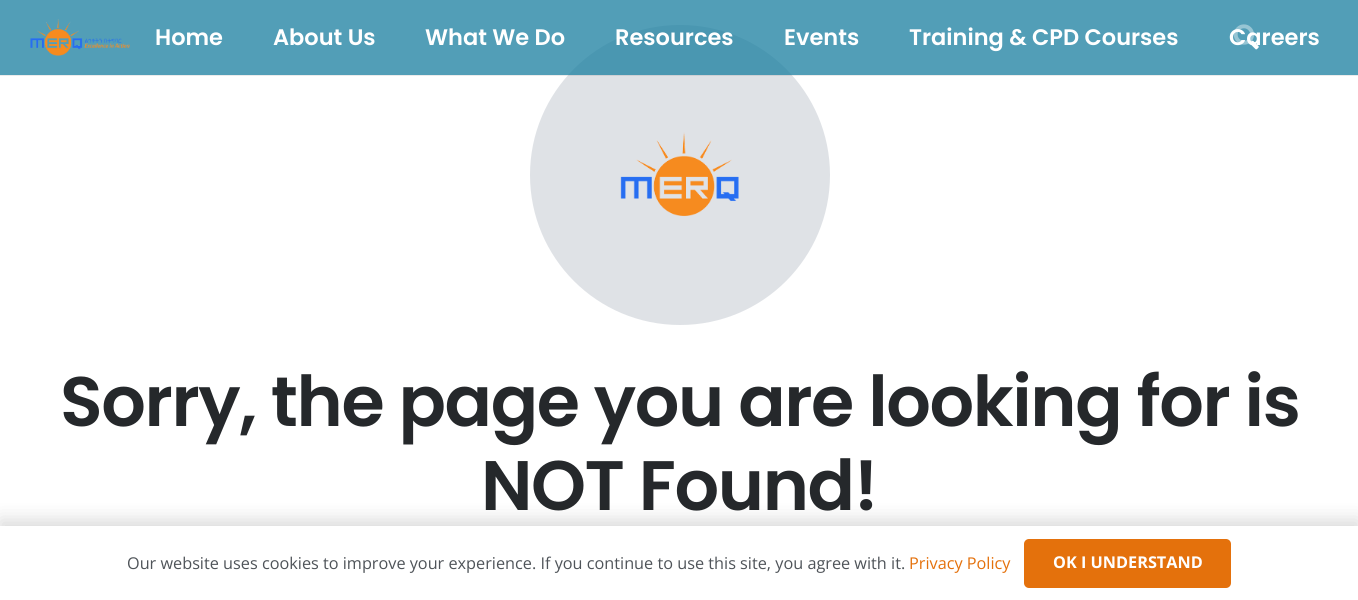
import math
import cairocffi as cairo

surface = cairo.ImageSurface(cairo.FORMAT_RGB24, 1358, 600)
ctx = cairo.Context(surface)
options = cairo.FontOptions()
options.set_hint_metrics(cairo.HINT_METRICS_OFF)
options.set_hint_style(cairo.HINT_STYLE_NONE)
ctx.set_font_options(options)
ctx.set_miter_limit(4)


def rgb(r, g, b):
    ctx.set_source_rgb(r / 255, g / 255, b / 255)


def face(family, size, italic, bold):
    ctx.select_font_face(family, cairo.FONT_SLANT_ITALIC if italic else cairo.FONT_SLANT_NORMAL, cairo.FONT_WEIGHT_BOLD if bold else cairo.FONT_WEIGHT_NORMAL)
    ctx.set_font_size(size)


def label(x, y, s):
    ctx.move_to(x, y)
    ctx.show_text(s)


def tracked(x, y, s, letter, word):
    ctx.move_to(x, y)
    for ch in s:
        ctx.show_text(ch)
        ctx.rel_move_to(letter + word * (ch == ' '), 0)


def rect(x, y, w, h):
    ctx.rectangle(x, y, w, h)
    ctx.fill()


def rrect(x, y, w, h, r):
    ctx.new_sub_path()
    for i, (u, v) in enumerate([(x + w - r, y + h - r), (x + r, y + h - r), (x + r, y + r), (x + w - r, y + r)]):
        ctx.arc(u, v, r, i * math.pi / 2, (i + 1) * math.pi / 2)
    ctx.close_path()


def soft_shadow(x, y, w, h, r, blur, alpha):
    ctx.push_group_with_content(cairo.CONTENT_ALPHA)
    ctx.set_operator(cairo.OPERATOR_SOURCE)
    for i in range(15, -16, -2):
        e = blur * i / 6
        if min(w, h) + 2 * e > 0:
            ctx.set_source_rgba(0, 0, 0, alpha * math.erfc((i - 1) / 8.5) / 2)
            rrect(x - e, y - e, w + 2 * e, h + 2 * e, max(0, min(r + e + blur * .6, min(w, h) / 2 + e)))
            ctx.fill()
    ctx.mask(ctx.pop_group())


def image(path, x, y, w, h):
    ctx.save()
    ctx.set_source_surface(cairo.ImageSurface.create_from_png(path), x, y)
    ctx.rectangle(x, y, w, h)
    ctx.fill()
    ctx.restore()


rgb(255, 255, 255)
ctx.paint()
rgb(223, 226, 230)
ctx.arc(680, 175, 150, 0, 2 * math.pi)
ctx.fill()
ctx.set_source_rgba(0, 0, 0, 0.08)
ctx.new_path()
ctx.move_to(0, 75)
ctx.line_to(0, 76)
ctx.line_to(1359, 76)
ctx.line_to(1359, 1)
ctx.line_to(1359, 75)
ctx.close_path()
ctx.fill()
ctx.set_source_rgba(0.098, 0.494, 0.62, 0.75)
rect(0, 0, 1358, 75)
image('image0.png', 30, 19, 100, 37)
face('Poppins SemiBold', 22.5, 0, 0)
rgb(255, 255, 255)
label(1229, 45, 'Careers')
image('image2.png', 1250, 40, 9, 10)
image('image1.png', 1233, 24, 21, 21)
label(155, 45, 'Home')
label(273, 45, 'About Us')
label(425, 45, 'What We Do')
label(615, 45, 'Resources')
label(784, 45, 'Events')
label(909, 45, 'Training & CPD Courses')
image('image3.png', 620, 132, 119, 85)
face('Poppins SemiBold', 70, 0, 0)
rgb(37, 40, 43)
tracked(60, 426, 'Sorry, the page you are looking for is', -1.4, 0)
tracked(481, 510, 'NOT Found!', -1.4, 0)
rgb(0, 0, 0)
soft_shadow(0, 520, 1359, 74, 0, 9.5, 0.15)
rgb(255, 255, 255)
rect(0, 526, 1358, 74)
face('Open Sans', 16.25, 0, 0)
rgb(79, 84, 89)
label(127, 569, 'Our website uses cookies to improve your experience. If you continue to use this site, you agree with it.')
rgb(228, 113, 12)
label(909, 569, 'Privacy Policy')
rrect(1024, 539, 207, 49, 5)
ctx.fill()
face('Open Sans', 16.25, 0, 1)
rgb(255, 255, 255)
label(1053, 568, 'OK I UNDERSTAND')
surface.write_to_png('render.png')
